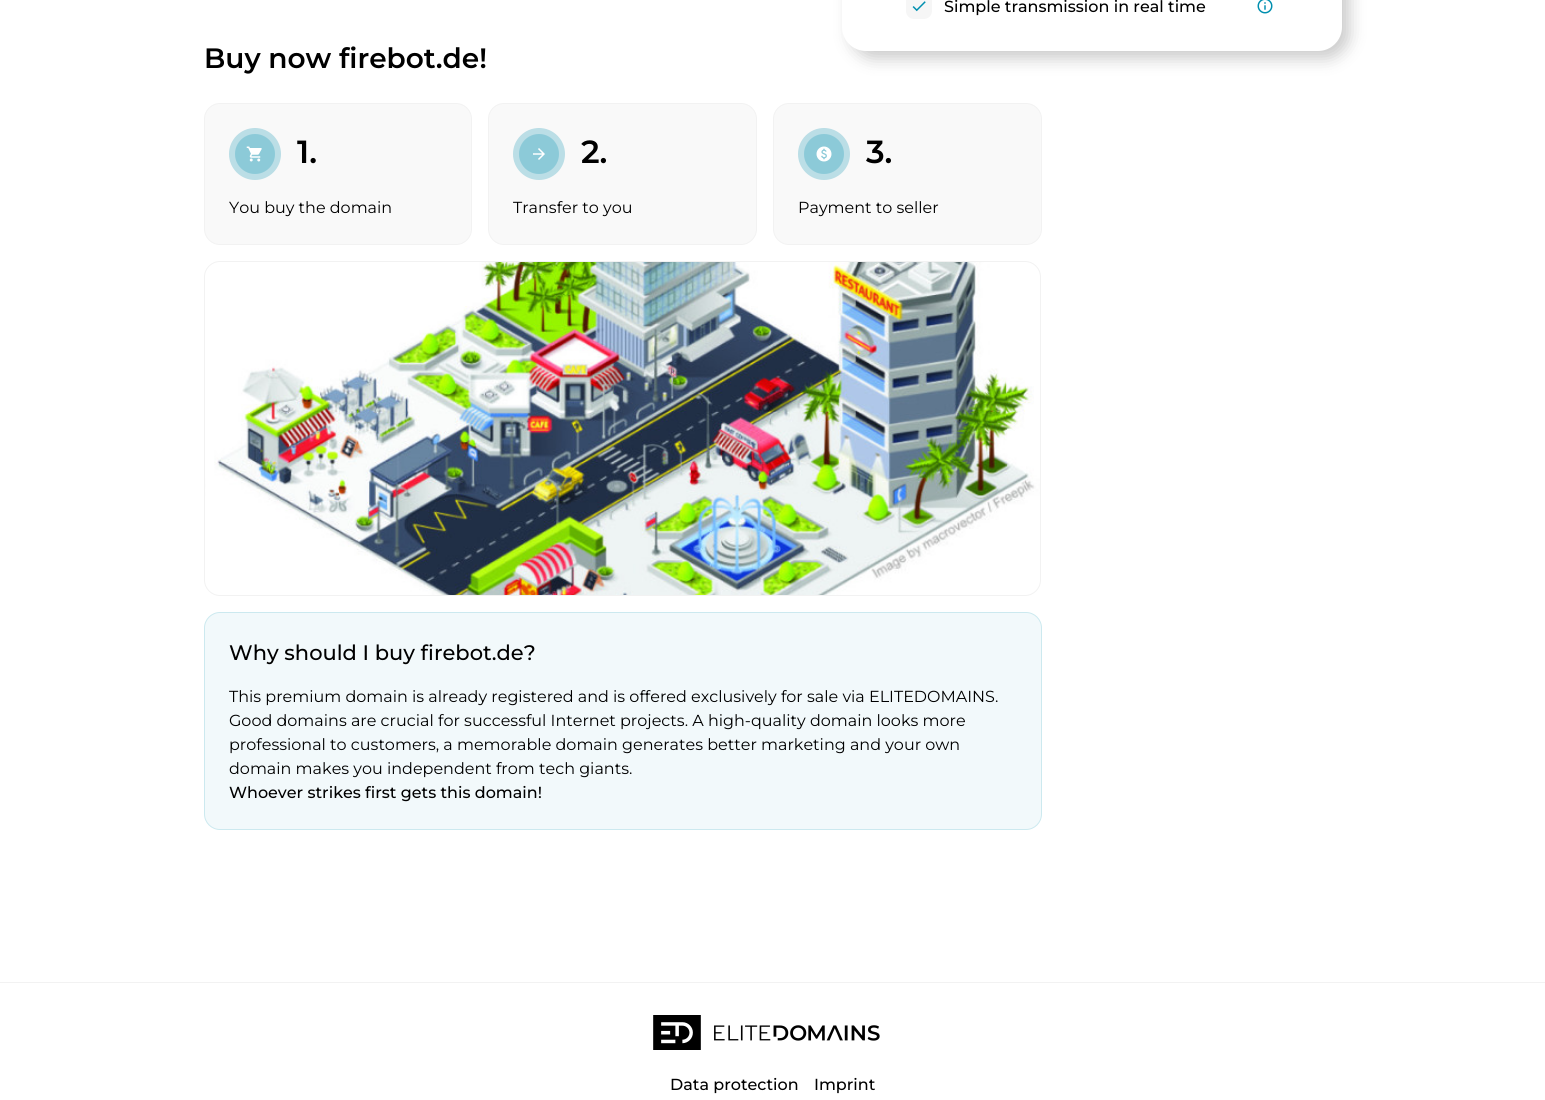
import math
import cairocffi as cairo

surface = cairo.ImageSurface(cairo.FORMAT_RGB24, 1545, 1100)
ctx = cairo.Context(surface)
options = cairo.FontOptions()
options.set_hint_metrics(cairo.HINT_METRICS_OFF)
options.set_hint_style(cairo.HINT_STYLE_NONE)
ctx.set_font_options(options)
ctx.set_miter_limit(4)


def rgb(r, g, b):
    ctx.set_source_rgb(r / 255, g / 255, b / 255)


def face(family, size, italic, bold):
    ctx.select_font_face(family, cairo.FONT_SLANT_ITALIC if italic else cairo.FONT_SLANT_NORMAL, cairo.FONT_WEIGHT_BOLD if bold else cairo.FONT_WEIGHT_NORMAL)
    ctx.set_font_size(size)


def label(x, y, s):
    ctx.move_to(x, y)
    ctx.show_text(s)


def rect(x, y, w, h):
    ctx.rectangle(x, y, w, h)
    ctx.fill()


def rrect(x, y, w, h, r):
    ctx.new_sub_path()
    for i, (u, v) in enumerate([(x + w - r, y + h - r), (x + r, y + h - r), (x + r, y + r), (x + w - r, y + r)]):
        ctx.arc(u, v, r, i * math.pi / 2, (i + 1) * math.pi / 2)
    ctx.close_path()


def soft_shadow(x, y, w, h, r, blur, alpha):
    ctx.push_group_with_content(cairo.CONTENT_ALPHA)
    ctx.set_operator(cairo.OPERATOR_SOURCE)
    for i in range(15, -16, -2):
        e = blur * i / 6
        if min(w, h) + 2 * e > 0:
            ctx.set_source_rgba(0, 0, 0, alpha * math.erfc((i - 1) / 8.5) / 2)
            rrect(x - e, y - e, w + 2 * e, h + 2 * e, max(0, min(r + e + blur * .6, min(w, h) / 2 + e)))
            ctx.fill()
    ctx.mask(ctx.pop_group())


def image(path, x, y, w, h):
    ctx.save()
    ctx.set_source_surface(cairo.ImageSurface.create_from_png(path), x, y)
    ctx.rectangle(x, y, w, h)
    ctx.fill()
    ctx.restore()


rgb(255, 255, 255)
ctx.paint()
rgb(0, 0, 0)
soft_shadow(850, -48, 500, 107, 24, 8, 0.2)
rgb(255, 255, 255)
rrect(842, -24, 500, 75, 24)
ctx.fill()
rgb(246, 246, 246)
rrect(906, -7, 26, 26, 8)
ctx.fill()
image('image0.png', 912, 1, 14, 11)
face('Montserrat Medium', 16, 0, 0)
rgb(0, 0, 0)
label(944, 12, 'Simple transmission in real time')
image('image1.png', 1257, 0, 16, 14)
face('Montserrat SemiBold', 28, 0, 0)
label(204, 68, 'Buy now firebot.de!')
rgb(249, 249, 249)
rrect(204.5, 103.5, 267, 141, 15.5)
ctx.fill_preserve()
rgb(242, 242, 242)
ctx.set_line_width(1)
ctx.stroke()
rgb(187, 223, 231)
ctx.arc(255, 154, 20, 0, 2 * math.pi)
ctx.fill()
ctx.set_source_rgba(0, 0.561, 0.686, 0.25)
ctx.arc(255, 154, 26, 0, 2 * math.pi)
ctx.fill()
image('image2.png', 246, 146, 16, 16)
face('Montserrat SemiBold', 32, 0, 0)
rgb(0, 0, 0)
label(297, 163, '1.')
face('Montserrat', 16, 0, 0)
label(229, 213, 'You buy the domain')
rgb(249, 249, 249)
rrect(488.5, 103.5, 268, 141, 15.5)
ctx.fill_preserve()
rgb(242, 242, 242)
ctx.stroke()
rgb(187, 223, 231)
ctx.arc(539, 154, 20, 0, 2 * math.pi)
ctx.fill()
ctx.set_source_rgba(0, 0.561, 0.686, 0.25)
ctx.arc(539, 154, 26, 0, 2 * math.pi)
ctx.fill()
image('image3.png', 533, 148, 12, 12)
face('Montserrat SemiBold', 32, 0, 0)
rgb(0, 0, 0)
label(581, 163, '2.')
face('Montserrat', 16, 0, 0)
label(513, 213, 'Transfer to you')
rgb(249, 249, 249)
rrect(773.5, 103.5, 268, 141, 15.5)
ctx.fill_preserve()
rgb(242, 242, 242)
ctx.stroke()
rgb(187, 223, 231)
ctx.arc(824, 154, 20, 0, 2 * math.pi)
ctx.fill()
ctx.set_source_rgba(0, 0.561, 0.686, 0.25)
ctx.arc(824, 154, 26, 0, 2 * math.pi)
ctx.fill()
image('image4.png', 816, 146, 16, 16)
face('Montserrat SemiBold', 32, 0, 0)
rgb(0, 0, 0)
label(866, 163, '3.')
face('Montserrat', 16, 0, 0)
label(798, 213, 'Payment to seller')
image('image5.png', 204, 261, 837, 335)
rrect(204.5, 261.5, 836, 334, 15.5)
rgb(242, 242, 242)
ctx.stroke()
rgb(242, 249, 251)
rrect(204.5, 612.5, 837, 217, 15.5)
ctx.fill_preserve()
rgb(204, 233, 239)
ctx.stroke()
face('Montserrat Medium', 21, 0, 0)
rgb(0, 0, 0)
label(229, 660, 'Why should I buy firebot.de?')
face('Montserrat', 16, 0, 0)
label(229, 702, 'This premium domain is already registered and is offered exclusively for sale via ELITEDOMAINS.')
label(229, 726, 'Good domains are crucial for successful Internet projects. A high-quality domain looks more')
label(229, 750, 'professional to customers, a memorable domain generates better marketing and your own')
label(229, 774, 'domain makes you independent from tech giants.')
face('Montserrat Medium', 16, 0, 0)
label(229, 798, 'Whoever strikes first gets this domain!')
rgb(242, 242, 242)
rect(0, 982, 1545, 1)
image('image6.png', 653, 1015, 227, 35)
rgb(0, 0, 0)
label(670, 1090, 'Data protection')
label(814, 1090, 'Imprint')
surface.write_to_png('render.png')
